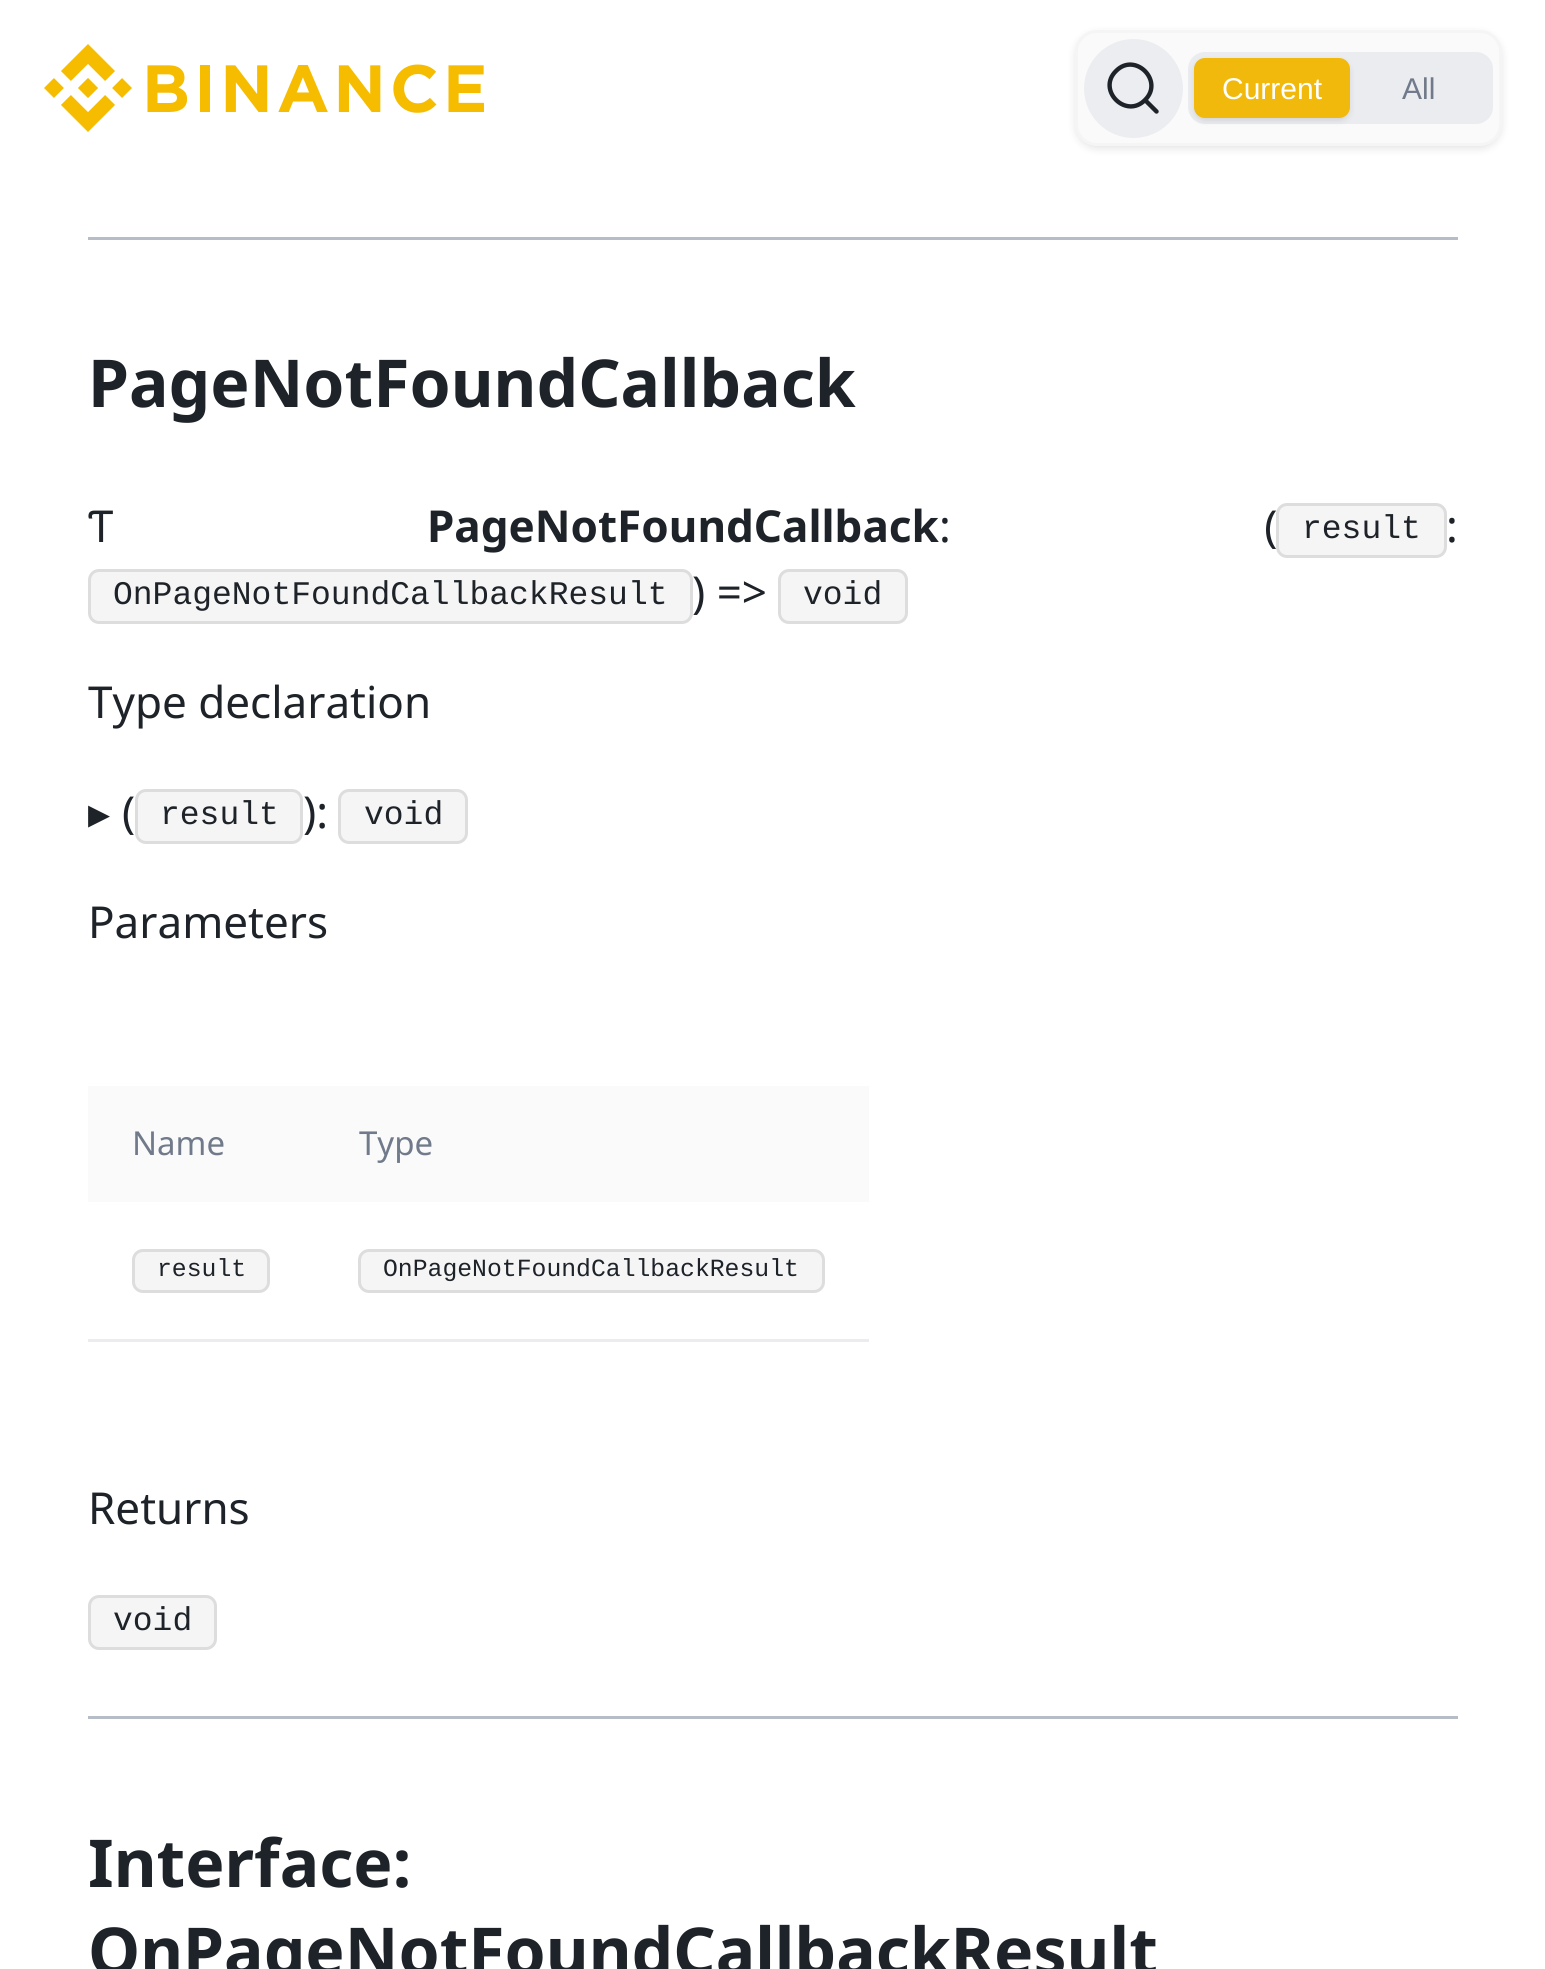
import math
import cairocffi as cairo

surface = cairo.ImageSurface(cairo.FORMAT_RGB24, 1545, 1969)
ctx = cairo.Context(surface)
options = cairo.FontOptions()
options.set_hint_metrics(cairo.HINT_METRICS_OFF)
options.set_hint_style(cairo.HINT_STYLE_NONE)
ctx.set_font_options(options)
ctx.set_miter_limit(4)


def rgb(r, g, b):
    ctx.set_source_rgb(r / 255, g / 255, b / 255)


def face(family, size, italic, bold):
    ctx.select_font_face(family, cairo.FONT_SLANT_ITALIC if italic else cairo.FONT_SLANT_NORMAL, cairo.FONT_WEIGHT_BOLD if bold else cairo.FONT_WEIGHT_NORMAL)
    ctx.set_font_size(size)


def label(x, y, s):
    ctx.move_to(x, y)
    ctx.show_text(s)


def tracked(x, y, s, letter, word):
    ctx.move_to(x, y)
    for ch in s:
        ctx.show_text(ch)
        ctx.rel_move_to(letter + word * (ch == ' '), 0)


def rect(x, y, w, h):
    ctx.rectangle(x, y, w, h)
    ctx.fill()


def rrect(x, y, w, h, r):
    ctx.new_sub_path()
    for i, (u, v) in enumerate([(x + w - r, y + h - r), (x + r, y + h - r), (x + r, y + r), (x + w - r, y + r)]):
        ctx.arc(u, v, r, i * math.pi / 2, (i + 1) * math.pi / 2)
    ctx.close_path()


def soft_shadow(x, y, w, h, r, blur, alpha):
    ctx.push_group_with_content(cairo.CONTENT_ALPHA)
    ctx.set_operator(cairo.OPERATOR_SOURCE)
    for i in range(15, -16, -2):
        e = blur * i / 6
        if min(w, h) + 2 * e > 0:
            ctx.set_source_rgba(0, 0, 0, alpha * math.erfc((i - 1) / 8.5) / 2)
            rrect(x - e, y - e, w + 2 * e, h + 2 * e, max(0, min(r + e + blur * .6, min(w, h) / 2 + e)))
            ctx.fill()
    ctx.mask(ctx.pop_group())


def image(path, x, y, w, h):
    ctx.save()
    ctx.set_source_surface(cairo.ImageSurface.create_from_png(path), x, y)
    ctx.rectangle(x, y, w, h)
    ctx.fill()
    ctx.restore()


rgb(255, 255, 255)
ctx.paint()
image('image0.png', 44, 44, 440, 88)
rgb(0, 0, 0)
soft_shadow(1075, 33, 427, 116, 22, 4, 0.1)
rgb(250, 250, 250)
rrect(1076.5, 31.5, 424, 113, 20.5)
ctx.fill_preserve()
rgb(245, 245, 245)
ctx.set_line_width(3)
ctx.stroke()
rgb(235, 237, 240)
ctx.arc(1133.5, 88.5, 49.5, 0, 2 * math.pi)
ctx.fill()
ctx.new_path()
ctx.move_to(1145, 100)
ctx.line_to(1156.5, 111.5)
ctx.line_to(1145, 100)
ctx.curve_to(1126, 119.5, 1096.5, 90, 1116, 71)
ctx.curve_to(1135, 51.5, 1164.5, 81, 1145, 100)
ctx.close_path()
rgb(30, 35, 41)
ctx.set_line_width(4.4)
ctx.set_line_cap(cairo.LINE_CAP_ROUND)
ctx.set_line_join(cairo.LINE_JOIN_ROUND)
ctx.stroke()
rgb(234, 236, 239)
rrect(1188, 52, 305, 72, 17)
ctx.fill()
rgb(0, 0, 0)
soft_shadow(1194, 61, 156, 60, 11, 3, 0.1)
rgb(240, 185, 11)
rrect(1194, 58, 156, 60, 11)
ctx.fill()
face('Liberation Sans', 30, 0, 0)
rgb(255, 255, 255)
label(1222, 99, 'Current')
rgb(112, 122, 138)
label(1402, 99, 'All')
rgb(183, 189, 198)
rect(88, 237, 1370, 3)
face('Noto Sans', 66, 0, 1)
rgb(30, 35, 41)
label(88, 407, 'PageNotFoundCallback')
face('Noto Sans', 44, 0, 0)
label(88, 542, 'Ƭ')
face('Noto Sans', 44, 0, 1)
label(427, 542, 'PageNotFoundCallback')
face('Noto Sans', 44, 0, 0)
tracked(939, 542, ': (', 0, 302)
rgb(245, 245, 245)
rrect(1276, 503, 171, 55, 11)
ctx.fill()
rrect(1277.5, 504.5, 168, 52, 9.5)
ctx.set_source_rgba(0, 0, 0, 0.1)
ctx.set_line_width(3)
ctx.set_line_cap(cairo.LINE_CAP_BUTT)
ctx.set_line_join(cairo.LINE_JOIN_MITER)
ctx.stroke()
face('Liberation Mono', 33, 0, 0)
rgb(30, 35, 41)
label(1302, 538, 'result')
face('Noto Sans', 44, 0, 0)
label(1446, 542, ':')
rgb(245, 245, 245)
rrect(88, 569, 605, 55, 11)
ctx.fill()
rrect(89.5, 570.5, 602, 52, 9.5)
ctx.set_source_rgba(0, 0, 0, 0.1)
ctx.stroke()
face('Liberation Mono', 33, 0, 0)
rgb(30, 35, 41)
label(113, 604, 'OnPageNotFoundCallbackResult')
face('Noto Sans', 44, 0, 0)
label(692, 608, ') =>')
rgb(245, 245, 245)
rrect(778, 569, 130, 55, 11)
ctx.fill()
rrect(779.5, 570.5, 127, 52, 9.5)
ctx.set_source_rgba(0, 0, 0, 0.1)
ctx.stroke()
face('Liberation Mono', 33, 0, 0)
rgb(30, 35, 41)
label(803, 604, 'void')
face('Noto Sans', 44, 0, 0)
label(88, 718, 'Type declaration')
face('DejaVu Sans', 44, 0, 0)
label(88, 828, '▸')
face('Noto Sans', 44, 0, 0)
label(122, 828, '(')
rgb(245, 245, 245)
rrect(135, 789, 168, 55, 11)
ctx.fill()
rrect(136.5, 790.5, 165, 52, 9.5)
ctx.set_source_rgba(0, 0, 0, 0.1)
ctx.stroke()
face('Liberation Mono', 33, 0, 0)
rgb(30, 35, 41)
label(160, 824, 'result')
face('Noto Sans', 44, 0, 0)
label(303, 828, '):')
rgb(245, 245, 245)
rrect(338, 789, 130, 55, 11)
ctx.fill()
rrect(339.5, 790.5, 127, 52, 9.5)
ctx.set_source_rgba(0, 0, 0, 0.1)
ctx.stroke()
face('Liberation Mono', 33, 0, 0)
rgb(30, 35, 41)
label(364, 824, 'void')
face('Noto Sans', 44, 0, 0)
label(88, 938, 'Parameters')
rgb(250, 250, 250)
rect(88, 1086, 781, 116)
face('Noto Sans', 33, 0, 0)
rgb(112, 122, 138)
label(132, 1155, 'Name')
label(359, 1155, 'Type')
rgb(234, 236, 239)
rect(88, 1339, 781, 3)
rgb(245, 245, 245)
rrect(132, 1249, 138, 44, 11)
ctx.fill()
rrect(133.5, 1250.5, 135, 41, 9.5)
ctx.set_source_rgba(0, 0, 0, 0.1)
ctx.stroke()
face('Liberation Mono', 24.75, 0, 0)
rgb(30, 35, 41)
label(157, 1276, 'result')
rgb(245, 245, 245)
rrect(358, 1249, 467, 44, 11)
ctx.fill()
rrect(359.5, 1250.5, 464, 41, 9.5)
ctx.set_source_rgba(0, 0, 0, 0.1)
ctx.stroke()
rgb(30, 35, 41)
label(383, 1276, 'OnPageNotFoundCallbackResult')
face('Noto Sans', 44, 0, 0)
label(88, 1524, 'Returns')
rgb(245, 245, 245)
rrect(88, 1595, 129, 55, 11)
ctx.fill()
rrect(89.5, 1596.5, 126, 52, 9.5)
ctx.set_source_rgba(0, 0, 0, 0.1)
ctx.stroke()
face('Liberation Mono', 33, 0, 0)
rgb(30, 35, 41)
label(113, 1630, 'void')
rgb(183, 189, 198)
rect(88, 1716, 1370, 3)
face('Noto Sans', 66, 0, 1)
rgb(30, 35, 41)
label(88, 1887, 'Interface:')
label(88, 1975, 'OnPageNotFoundCallbackResult')
surface.write_to_png('render.png')
